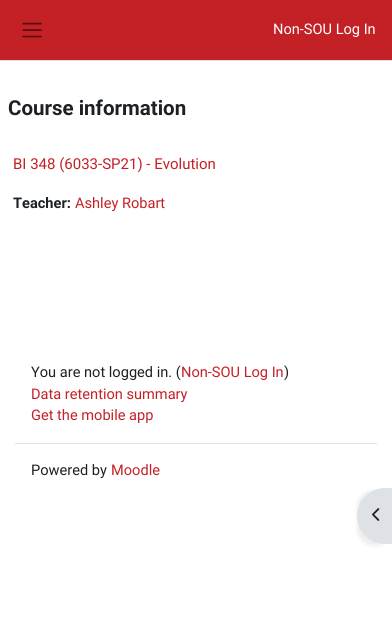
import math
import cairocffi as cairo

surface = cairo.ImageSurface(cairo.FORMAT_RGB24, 392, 644)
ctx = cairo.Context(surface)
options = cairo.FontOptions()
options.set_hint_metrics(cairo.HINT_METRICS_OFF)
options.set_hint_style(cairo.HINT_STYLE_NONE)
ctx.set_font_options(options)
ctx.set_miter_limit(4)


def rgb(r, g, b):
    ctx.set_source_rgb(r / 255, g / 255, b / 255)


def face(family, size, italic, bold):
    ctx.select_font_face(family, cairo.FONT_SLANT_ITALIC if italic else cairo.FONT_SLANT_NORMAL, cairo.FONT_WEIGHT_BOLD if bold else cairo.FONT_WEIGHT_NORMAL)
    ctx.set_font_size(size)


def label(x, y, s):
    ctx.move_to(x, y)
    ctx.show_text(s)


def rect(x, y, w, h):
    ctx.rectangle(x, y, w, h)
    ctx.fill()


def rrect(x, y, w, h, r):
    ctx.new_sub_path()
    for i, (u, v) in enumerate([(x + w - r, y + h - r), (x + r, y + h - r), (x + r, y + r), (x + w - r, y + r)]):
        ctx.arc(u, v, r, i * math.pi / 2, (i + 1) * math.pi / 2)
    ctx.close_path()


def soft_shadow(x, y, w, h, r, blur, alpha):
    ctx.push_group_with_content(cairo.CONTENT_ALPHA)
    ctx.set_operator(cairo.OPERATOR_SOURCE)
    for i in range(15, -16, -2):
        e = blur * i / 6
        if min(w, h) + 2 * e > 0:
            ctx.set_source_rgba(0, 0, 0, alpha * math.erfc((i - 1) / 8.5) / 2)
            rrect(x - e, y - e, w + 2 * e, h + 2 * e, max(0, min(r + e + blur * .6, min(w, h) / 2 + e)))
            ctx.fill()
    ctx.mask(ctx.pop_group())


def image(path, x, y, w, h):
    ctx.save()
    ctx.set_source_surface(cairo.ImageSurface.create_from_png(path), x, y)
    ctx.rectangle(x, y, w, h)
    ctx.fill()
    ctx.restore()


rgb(255, 255, 255)
ctx.paint()
rgb(196, 33, 38)
rect(0, 0, 392, 60)
rgb(222, 226, 230)
rect(0, 60, 392, 1)
image('image0.png', 22, 22, 20, 16)
face('Roboto', 14.6, 0, 0)
rgb(255, 255, 255)
label(273, 34, 'Non-SOU Log In')
face('Roboto', 20.5, 0, 1)
rgb(29, 33, 37)
label(8, 115, 'Course information')
face('Roboto', 15, 0, 0)
rgb(196, 33, 38)
label(13, 169, 'BI 348 (6033-SP21) - Evolution')
face('Roboto', 14.6, 0, 1)
rgb(29, 33, 37)
label(13, 208, 'Teacher:')
face('Roboto', 14.6, 0, 0)
rgb(196, 33, 38)
label(75, 208, 'Ashley Robart')
rgb(0, 0, 0)
soft_shadow(357, 490, 35, 56, 28, 2, 0.07)
rgb(222, 226, 230)
ctx.new_path()
ctx.move_to(385, 488)
ctx.line_to(392, 488)
ctx.line_to(392, 544)
ctx.line_to(385, 544)
ctx.curve_to(369.5, 544, 357, 531.5, 357, 516)
ctx.curve_to(357, 500.5, 369.5, 488, 385, 488)
ctx.close_path()
ctx.fill()
image('image1.png', 372, 508, 8, 13)
rect(15, 443, 362, 1)
rgb(29, 33, 37)
label(31, 377, 'You are not logged in. (')
rgb(196, 33, 38)
label(181, 377, 'Non-SOU Log In')
rgb(29, 33, 37)
label(284, 377, ')')
rgb(196, 33, 38)
label(31, 399, 'Data retention summary')
label(31, 420, 'Get the mobile app')
rgb(29, 33, 37)
label(31, 475, 'Powered by')
rgb(196, 33, 38)
label(111, 475, 'Moodle')
surface.write_to_png('render.png')
